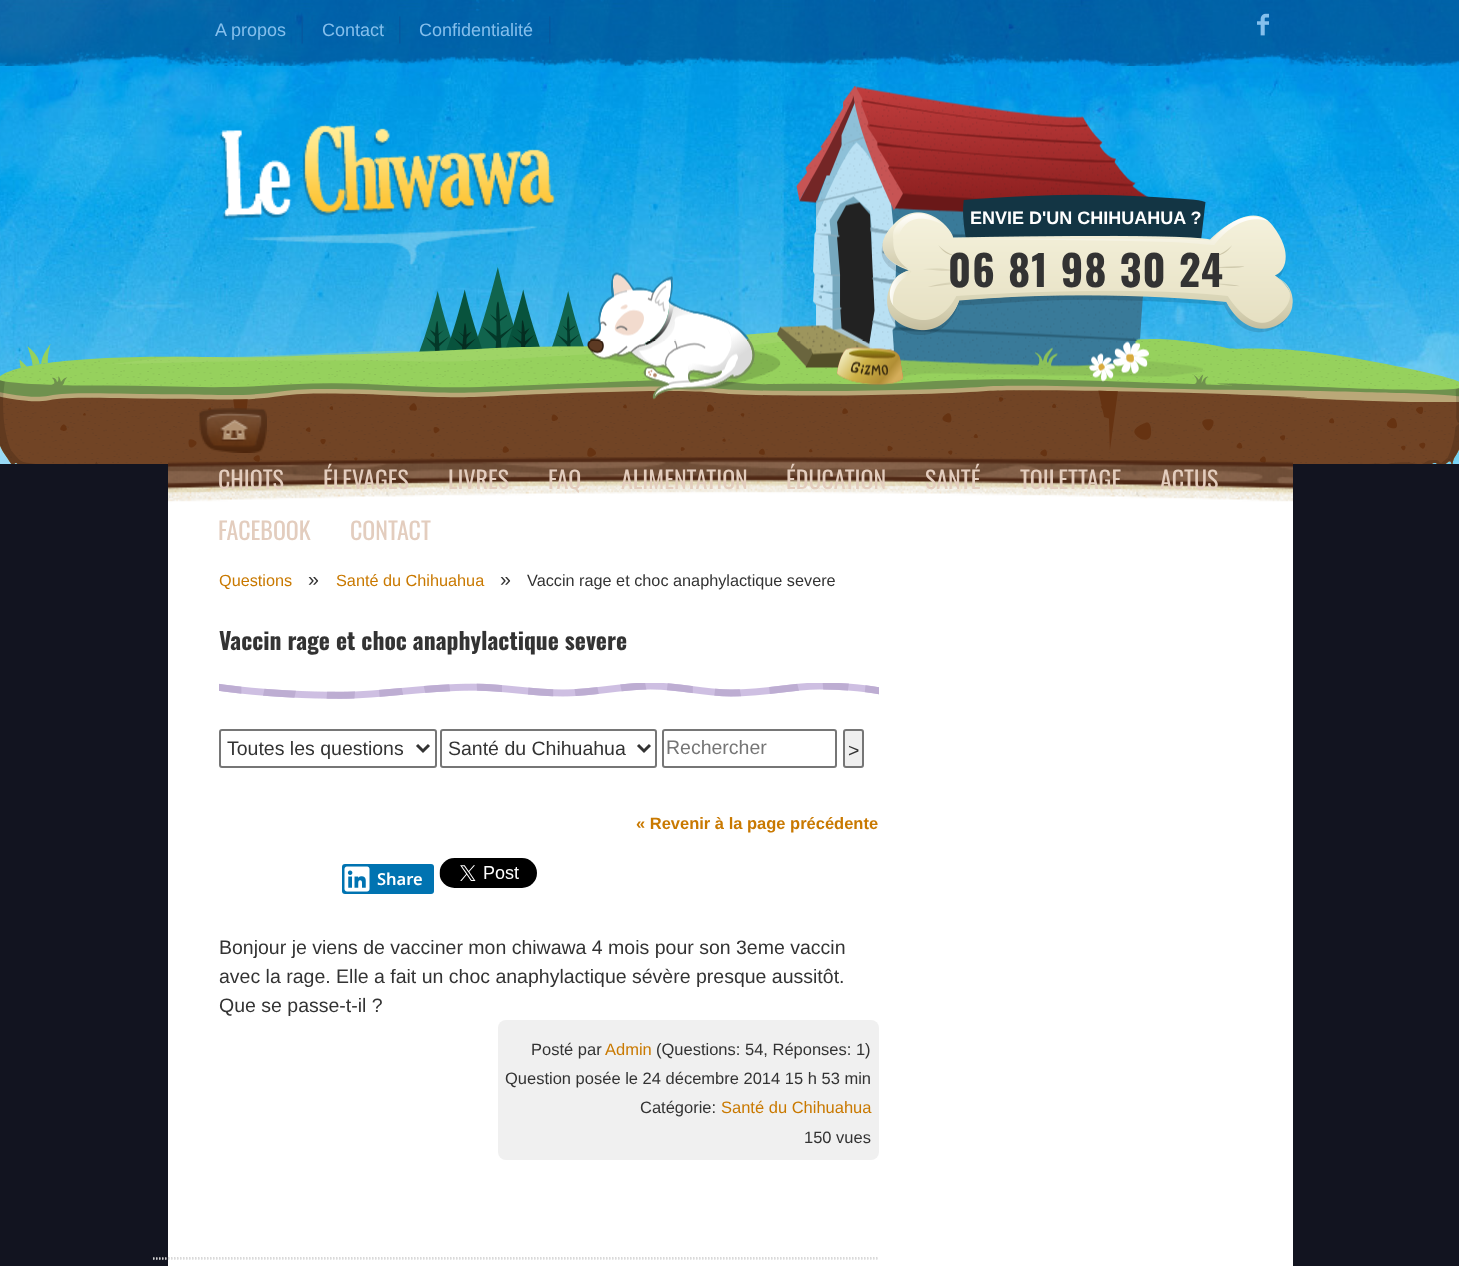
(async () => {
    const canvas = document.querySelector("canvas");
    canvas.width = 1459;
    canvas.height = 1266;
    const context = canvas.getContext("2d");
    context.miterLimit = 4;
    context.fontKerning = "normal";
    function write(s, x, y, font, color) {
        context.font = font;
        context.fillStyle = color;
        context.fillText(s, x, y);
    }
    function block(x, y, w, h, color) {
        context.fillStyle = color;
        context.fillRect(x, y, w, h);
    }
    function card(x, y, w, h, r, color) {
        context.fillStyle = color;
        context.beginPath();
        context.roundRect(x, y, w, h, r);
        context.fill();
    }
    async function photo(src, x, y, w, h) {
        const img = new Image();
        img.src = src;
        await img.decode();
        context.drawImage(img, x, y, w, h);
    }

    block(0, 0, 1459, 1266, "rgb(255, 255, 255)");
    await photo("media/1.png", 0, 0, 1459, 464);
    await photo("media/2.png", 0, 0, 1459, 66);
    await photo("media/3.png", 301, 16, 2, 28);
    write("A propos", 215, 36, "18px Liberation Sans", "rgb(133, 191, 236)");
    await photo("media/4.png", 399, 16, 2, 28);
    write("Contact", 322, 36, "18px Liberation Sans", "rgb(133, 191, 236)");
    await photo("media/5.png", 549, 16, 2, 28);
    write("Confidentialité", 419, 36, "18px Liberation Sans", "rgb(133, 191, 236)");
    await photo("media/6.png", 1257, 13, 12, 23);
    await photo("media/7.png", 0, 267, 1459, 197);
    await photo("media/8.png", 219, 124, 336, 142);
    await photo("media/9.png", 587, 86, 616, 314);
    await photo("media/10.png", 881, 194, 412, 141);
    write("ENVIE D'UN CHIHUAHUA ?", 970, 224, "bold 18px Liberation Sans", "rgb(255, 255, 255)");
    context.letterSpacing = "1.25px";
    write("06 81 98 30 24", 948, 287, "bold 42px Oswald", "rgb(51, 51, 51)");
    await photo("media/11.png", 199, 408, 68, 45);
    block(0, 464, 1459, 802, "rgb(18, 20, 32)");
    await photo("media/12.png", 168, 457, 1125, 195);
    context.letterSpacing = "0px";
    write("CHIOTS", 218, 489, "24px Oswald", "rgb(227, 205, 190)");
    write("ÉLEVAGES", 323, 489, "24px Oswald", "rgb(227, 205, 190)");
    write("LIVRES", 448, 489, "24px Oswald", "rgb(227, 205, 190)");
    write("FAQ", 548, 489, "24px Oswald", "rgb(227, 205, 190)");
    write("ALIMENTATION", 621, 489, "24px Oswald", "rgb(227, 205, 190)");
    write("ÉDUCATION", 786, 489, "24px Oswald", "rgb(227, 205, 190)");
    write("SANTÉ", 925, 489, "24px Oswald", "rgb(227, 205, 190)");
    write("TOILETTAGE", 1020, 489, "24px Oswald", "rgb(227, 205, 190)");
    write("ACTUS", 1160, 489, "24px Oswald", "rgb(227, 205, 190)");
    write("FACEBOOK", 218, 540, "24px Oswald", "rgb(227, 205, 190)");
    write("CONTACT", 350, 540, "24px Oswald", "rgb(227, 205, 190)");
    block(168, 652, 1125, 614, "rgb(255, 255, 255)");
    write("Questions", 219, 586, "16.25px Liberation Sans", "rgb(201, 121, 0)");
    write("»", 308, 586, "19.5px Liberation Sans", "rgb(51, 51, 51)");
    write("Santé du Chihuahua", 336, 586, "16.25px Liberation Sans", "rgb(201, 121, 0)");
    write("»", 500, 586, "19.5px Liberation Sans", "rgb(51, 51, 51)");
    write("Vaccin rage et choc anaphylactique severe", 527, 586, "16.25px Liberation Sans", "rgb(51, 51, 51)");
    await photo("media/13.png", 219, 683, 660, 16);
    write("Vaccin rage et choc anaphylactique severe", 219, 650, "bold 23.6px Oswald", "rgb(51, 51, 51)");
    context.beginPath();
    context.roundRect(220, 730, 216, 37, 2);
    context.strokeStyle = "rgb(118, 118, 118)";
    context.lineWidth = 2;
    context.stroke();
    context.beginPath();
    context.moveTo(417, 745);
    context.lineTo(423, 751);
    context.lineTo(429, 745);
    context.strokeStyle = "rgb(51, 51, 51)";
    context.lineWidth = 3;
    context.stroke();
    write("Toutes les questions", 227, 755, "19.5px Liberation Sans", "rgb(51, 51, 51)");
    context.beginPath();
    context.roundRect(441, 730, 215, 37, 2);
    context.strokeStyle = "rgb(118, 118, 118)";
    context.lineWidth = 2;
    context.stroke();
    context.beginPath();
    context.moveTo(638, 745);
    context.lineTo(644, 751);
    context.lineTo(650, 745);
    context.strokeStyle = "rgb(51, 51, 51)";
    context.lineWidth = 3;
    context.stroke();
    write("Santé du Chihuahua", 448, 755, "19.5px Liberation Sans", "rgb(51, 51, 51)");
    context.beginPath();
    context.roundRect(663, 730, 173, 37, 2);
    context.strokeStyle = "rgb(118, 118, 118)";
    context.lineWidth = 2;
    context.stroke();
    write("Rechercher", 666, 754, "19.5px Liberation Sans", "rgb(117, 117, 117)");
    context.fillStyle = "rgb(239, 239, 239)";
    context.beginPath();
    context.roundRect(844, 730, 19, 37, 2);
    context.fill();
    context.stroke();
    write(">", 848, 757, "19.5px Liberation Sans", "rgb(51, 51, 51)");
    write("« Revenir à la page précédente", 636, 829, "bold 16.5px Liberation Sans", "rgb(201, 121, 0)");
    card(342, 864, 92, 30, 3, "rgb(0, 115, 177)");
    await photo("media/14.png", 344, 866, 26, 26);
    write("Share", 377, 885, "600 16.5px Noto Sans", "rgb(255, 255, 255)");
    await photo("media/15.png", 439, 858, 98, 30);
    write("Bonjour je viens de vacciner mon chiwawa 4 mois pour son 3eme vaccin", 219, 954, "19.5px Liberation Sans", "rgb(51, 51, 51)");
    write("avec la rage. Elle a fait un choc anaphylactique sévère presque aussitôt.", 219, 983, "19.5px Liberation Sans", "rgb(51, 51, 51)");
    write("Que se passe-t-il ?", 219, 1012, "19.5px Liberation Sans", "rgb(51, 51, 51)");
    card(498, 1020, 381, 140, 8, "rgb(240, 240, 240)");
    write("Posté par", 531, 1055, "16.5px Liberation Sans", "rgb(51, 51, 51)");
    write("Admin", 605, 1055, "16.5px Liberation Sans", "rgb(201, 121, 0)");
    write("(Questions: 54, Réponses: 1)", 656, 1055, "16.5px Liberation Sans", "rgb(51, 51, 51)");
    write("Question posée le 24 décembre 2014 15 h 53 min", 505, 1084, "16.5px Liberation Sans", "rgb(51, 51, 51)");
    write("Catégorie:", 640, 1113, "16.5px Liberation Sans", "rgb(51, 51, 51)");
    write("Santé du Chihuahua", 721, 1113, "16.5px Liberation Sans", "rgb(201, 121, 0)");
    write("150 vues", 804, 1143, "16.5px Liberation Sans", "rgb(51, 51, 51)");
    context.beginPath();
    context.moveTo(153, 1258);
    context.lineTo(879, 1258);
    context.strokeStyle = "rgb(204, 204, 204)";
    context.lineWidth = 1.5;
    context.setLineDash([1.5, 1.5]);
    context.stroke();
    context.beginPath();
    context.moveTo(153, 1259);
    context.lineTo(879, 1259);
    context.strokeStyle = "rgb(221, 221, 221)";
    context.stroke();
})();
